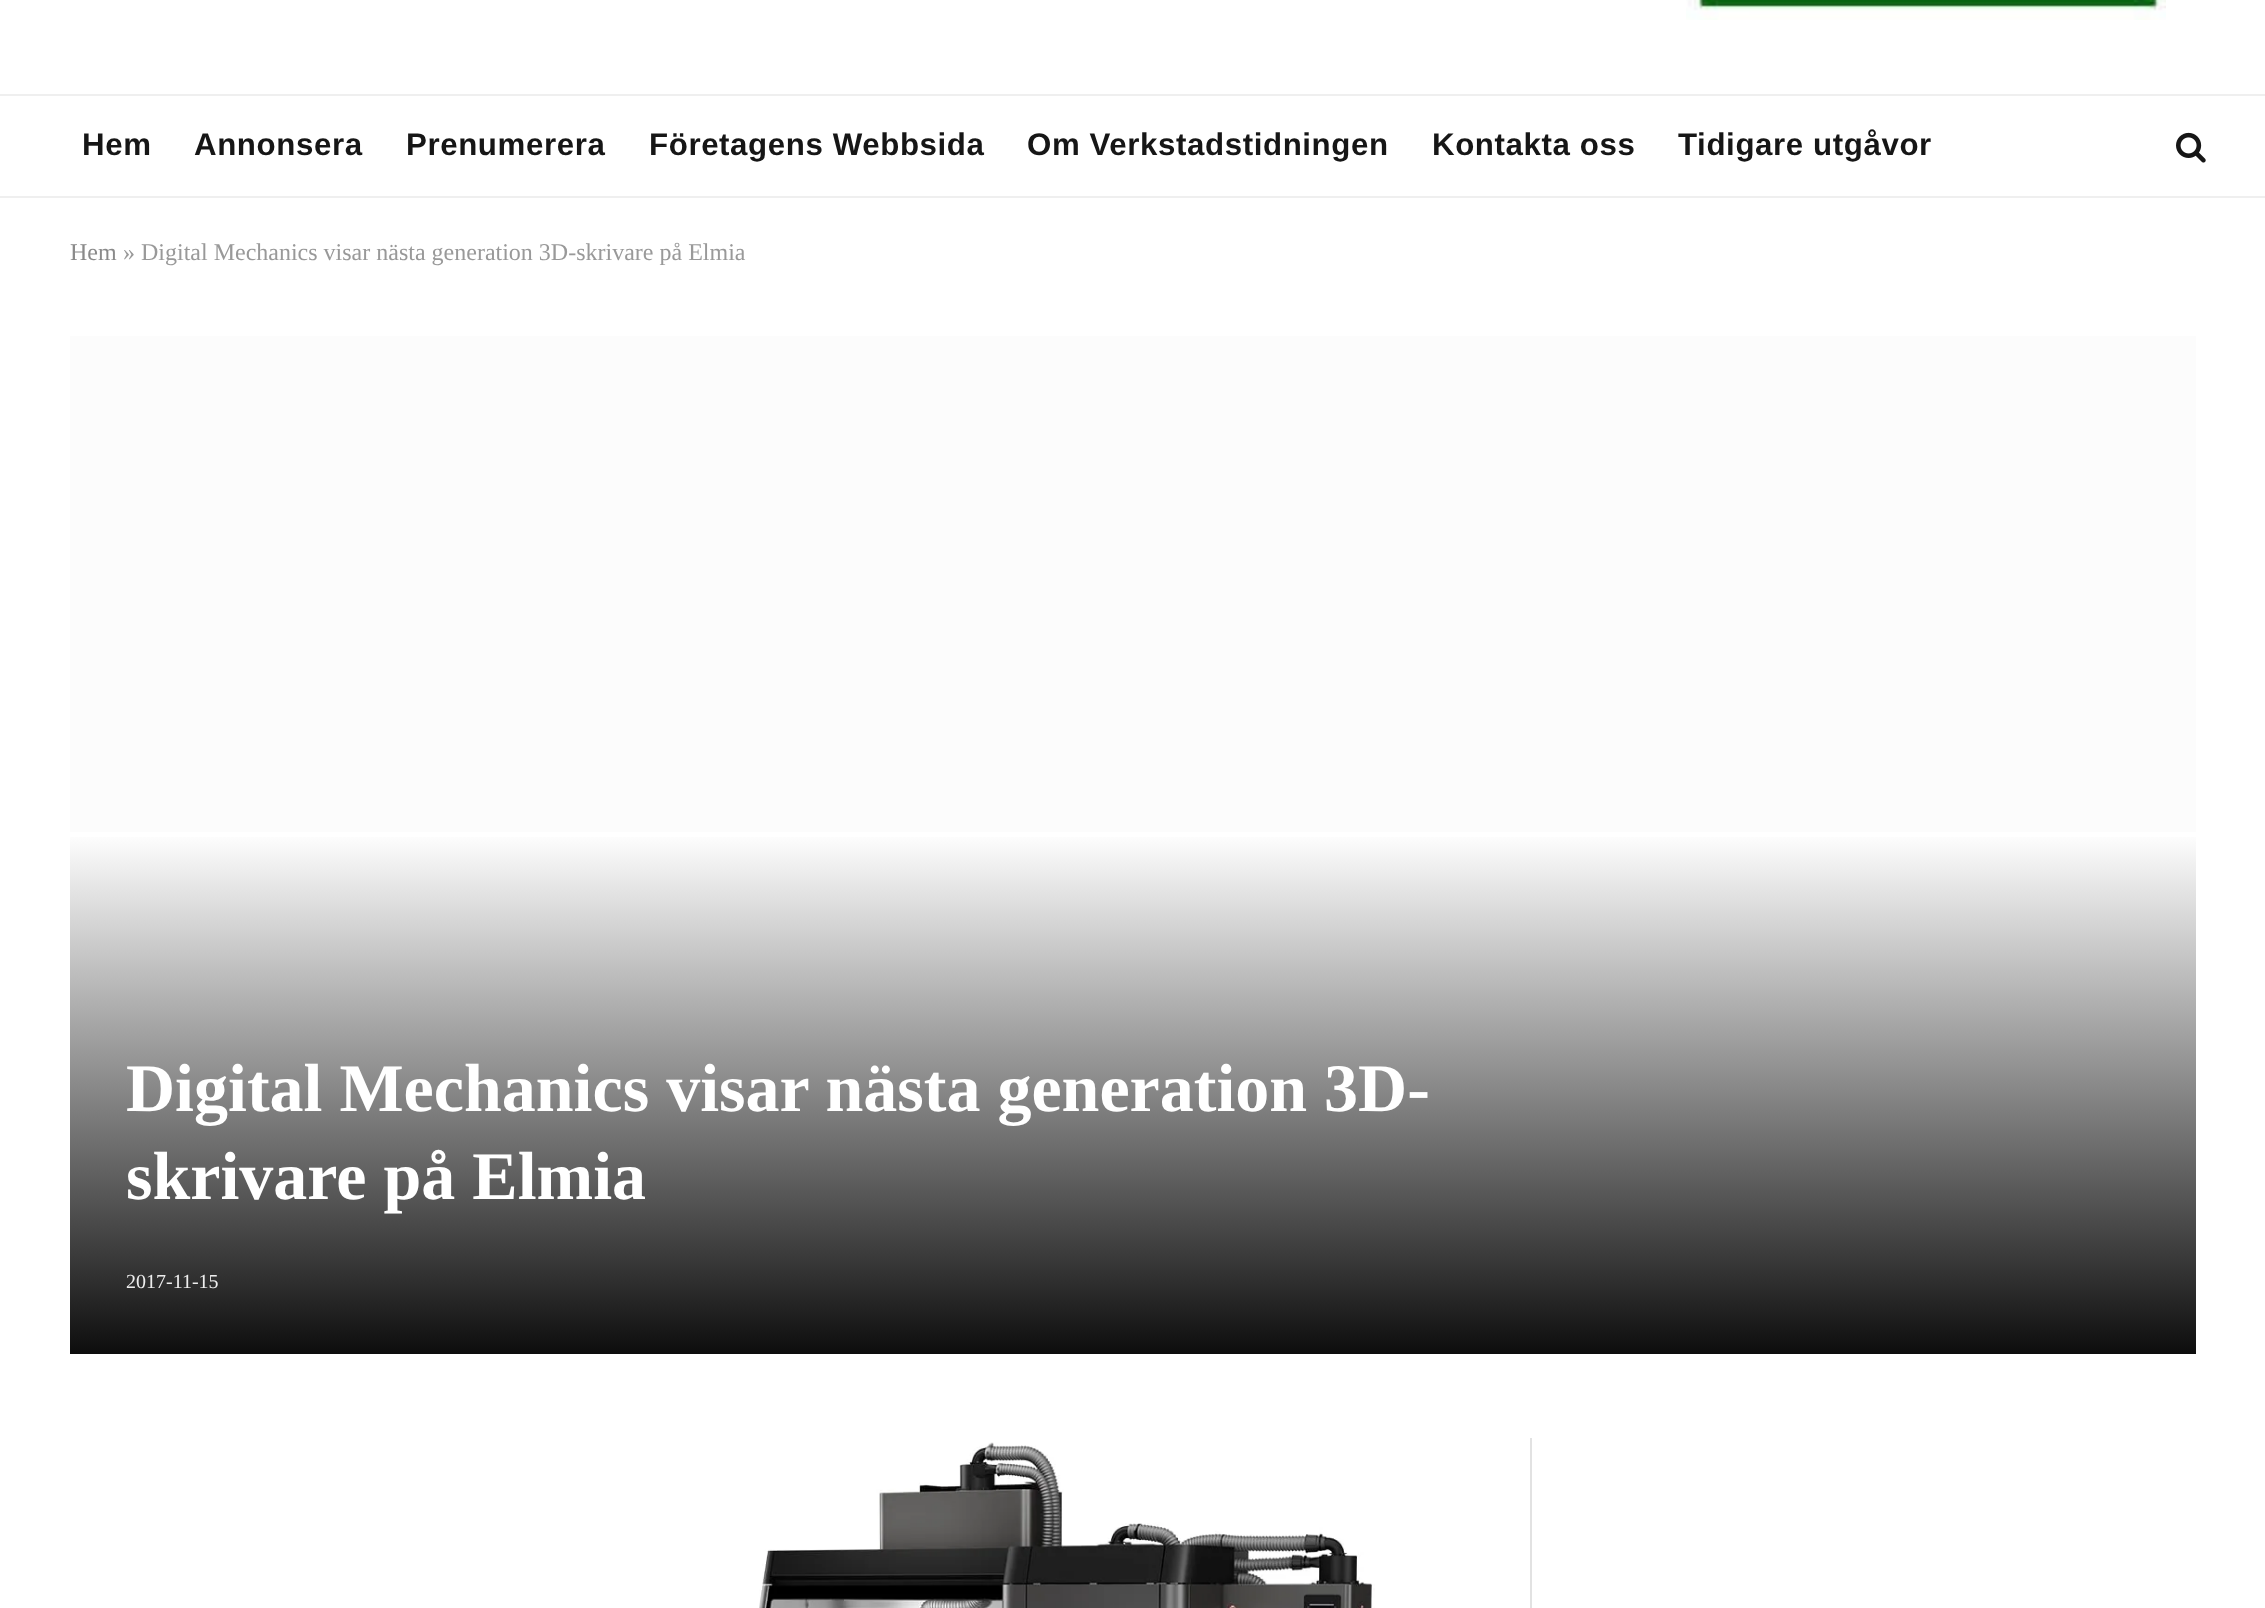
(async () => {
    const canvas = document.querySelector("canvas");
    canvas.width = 2265;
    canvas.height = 1608;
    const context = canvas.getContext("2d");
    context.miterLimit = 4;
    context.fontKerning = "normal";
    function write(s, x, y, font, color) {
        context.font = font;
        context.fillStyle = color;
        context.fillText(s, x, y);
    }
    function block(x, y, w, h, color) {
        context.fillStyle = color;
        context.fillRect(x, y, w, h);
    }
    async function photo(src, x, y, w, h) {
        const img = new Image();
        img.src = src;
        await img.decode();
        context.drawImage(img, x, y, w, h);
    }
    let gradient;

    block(0, 0, 2265, 1608, "rgb(255, 255, 255)");
    await photo("media/1.png", 1686, 0, 480, 20);
    block(0, 94, 2265, 2, "rgb(239, 239, 239)");
    block(0, 196, 2265, 2, "rgb(239, 239, 239)");
    context.letterSpacing = "0.6px";
    write("Hem", 82, 155, "bold 31.25px Liberation Sans", "rgb(22, 22, 22)");
    write("Annonsera", 194, 155, "bold 31.25px Liberation Sans", "rgb(22, 22, 22)");
    write("Prenumerera", 406, 155, "bold 31.25px Liberation Sans", "rgb(22, 22, 22)");
    write("Företagens Webbsida", 649, 155, "bold 31.25px Liberation Sans", "rgb(22, 22, 22)");
    write("Om Verkstadstidningen", 1027, 155, "bold 31.25px Liberation Sans", "rgb(22, 22, 22)");
    write("Kontakta oss", 1432, 155, "bold 31.25px Liberation Sans", "rgb(22, 22, 22)");
    write("Tidigare utgåvor", 1678, 155, "bold 31.25px Liberation Sans", "rgb(22, 22, 22)");
    await photo("media/2.png", 2176, 132, 30, 31);
    context.letterSpacing = "0px";
    write("Hem", 70, 260, "24px Liberation Serif", "rgb(138, 138, 138)");
    write("» Digital Mechanics visar nästa generation 3D-skrivare på Elmia", 123, 260, "24px Liberation Serif", "rgb(153, 153, 153)");
    block(70, 336, 2126, 496, "rgb(252, 252, 252)");
    gradient = context.createLinearGradient(1133, 832, 1133, 1354);
    gradient.addColorStop(0, "rgb(255, 255, 255)");
    gradient.addColorStop(1, "rgb(13, 13, 13)");
    context.fillStyle = gradient;
    context.fillRect(70, 837, 2126, 517);
    write("Digital Mechanics visar nästa generation 3D-", 126, 1111, "bold 68px Liberation Serif", "rgb(255, 255, 255)");
    write("skrivare på Elmia", 126, 1199, "bold 68px Liberation Serif", "rgb(255, 255, 255)");
    write("2017-11-15", 126, 1288, "20px Liberation Serif", "rgb(238, 238, 238)");
    await photo("media/3.png", 759, 1442, 616, 166);
    block(1530, 1438, 2, 170, "rgb(226, 226, 226)");
})();
